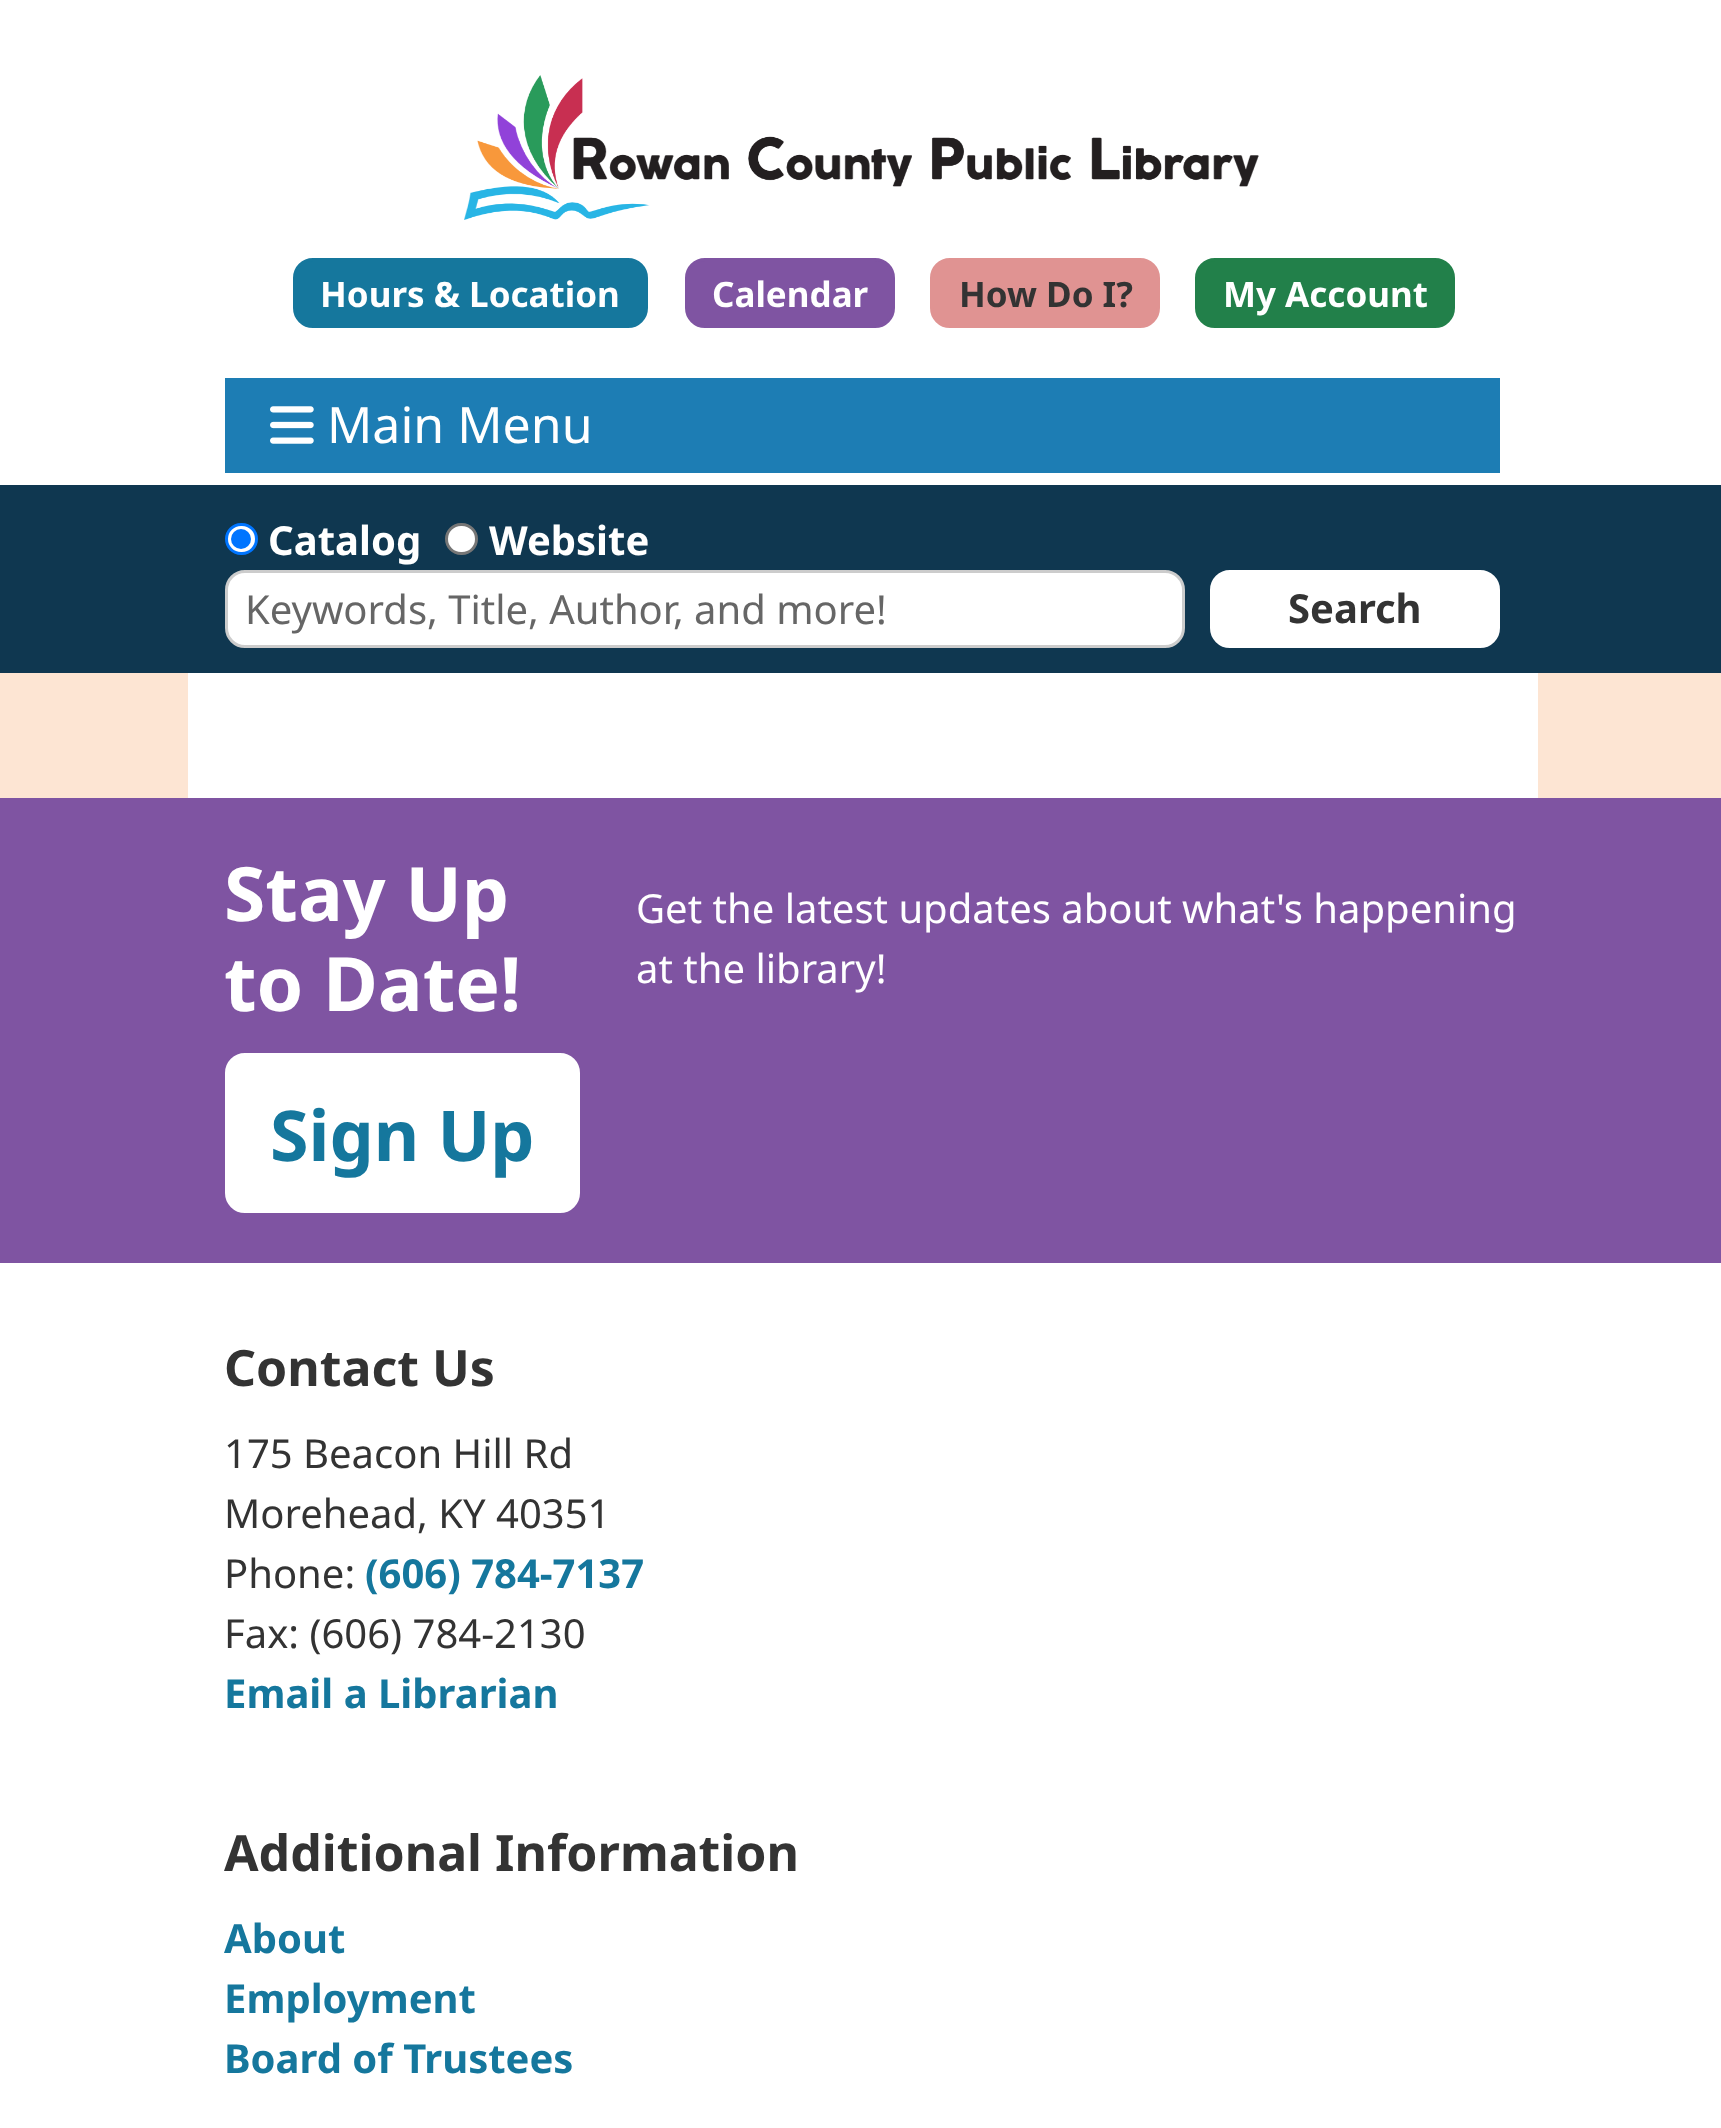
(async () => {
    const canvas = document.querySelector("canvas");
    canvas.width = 1721;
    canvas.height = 2128;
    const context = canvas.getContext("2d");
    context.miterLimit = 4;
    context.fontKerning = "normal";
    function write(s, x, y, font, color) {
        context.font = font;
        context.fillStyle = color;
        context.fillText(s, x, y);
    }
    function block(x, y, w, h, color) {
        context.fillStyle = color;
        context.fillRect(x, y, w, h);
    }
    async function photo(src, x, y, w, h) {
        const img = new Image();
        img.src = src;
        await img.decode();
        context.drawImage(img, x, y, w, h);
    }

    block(0, 0, 1721, 2128, "rgb(255, 255, 255)");
    await photo("media/1.png", 464, 75, 795, 145);
    context.fillStyle = "rgb(21, 119, 157)";
    context.beginPath();
    context.roundRect(294.5, 259.5, 352, 67, 18.5);
    context.fill();
    context.strokeStyle = "rgb(21, 119, 157)";
    context.lineWidth = 3;
    context.stroke();
    write("Hours & Location", 320, 307, "bold 35px Noto Sans", "rgb(255, 255, 255)");
    context.fillStyle = "rgb(127, 84, 162)";
    context.beginPath();
    context.roundRect(686.5, 259.5, 207, 67, 18.5);
    context.fill();
    context.strokeStyle = "rgb(127, 84, 162)";
    context.stroke();
    write("Calendar", 712, 307, "bold 35px Noto Sans", "rgb(255, 255, 255)");
    context.fillStyle = "rgb(224, 147, 146)";
    context.beginPath();
    context.roundRect(931.5, 259.5, 227, 67, 18.5);
    context.fill();
    context.strokeStyle = "rgb(224, 147, 146)";
    context.stroke();
    write("How Do I?", 959, 307, "bold 35px Noto Sans", "rgb(51, 51, 51)");
    context.fillStyle = "rgb(34, 128, 74)";
    context.beginPath();
    context.roundRect(1196.5, 259.5, 257, 67, 18.5);
    context.fill();
    context.strokeStyle = "rgb(34, 128, 74)";
    context.stroke();
    write("My Account", 1223, 307, "bold 35px Noto Sans", "rgb(255, 255, 255)");
    block(225, 378, 1275, 95, "rgb(29, 125, 180)");
    await photo("media/2.png", 270, 406, 44, 38);
    write("Main Menu", 327, 443, "50px Noto Sans", "rgb(255, 255, 255)");
    block(0, 485, 1721, 188, "rgb(15, 55, 80)");
    context.fillStyle = "rgb(255, 255, 255)";
    context.beginPath();
    context.roundRect(226.5, 524.5, 30, 29, 14.5);
    context.fill();
    context.strokeStyle = "rgb(0, 117, 255)";
    context.stroke();
    context.fillStyle = "rgb(0, 117, 255)";
    context.beginPath();
    context.arc(241, 539, 10, 0, Math.PI * 2);
    context.fill();
    write("Catalog", 268, 555, "bold 40px Noto Sans", "rgb(255, 255, 255)");
    context.beginPath();
    context.roundRect(446.5, 524.5, 30, 29, 14.5);
    context.fill();
    context.strokeStyle = "rgb(118, 118, 118)";
    context.stroke();
    write("Website", 489, 555, "bold 40px Noto Sans", "rgb(255, 255, 255)");
    context.beginPath();
    context.roundRect(226.5, 571.5, 957, 75, 18.5);
    context.fill();
    context.strokeStyle = "rgb(204, 204, 204)";
    context.stroke();
    write("Keywords, Title, Author, and more!", 245, 624, "40px Noto Sans", "rgb(102, 102, 102)");
    context.fillStyle = "rgb(255, 255, 255)";
    context.beginPath();
    context.roundRect(1211.5, 571.5, 287, 75, 18.5);
    context.fill();
    context.strokeStyle = "rgb(255, 255, 255)";
    context.stroke();
    write("Search", 1288, 623, "bold 40px Noto Sans", "rgb(51, 51, 51)");
    block(0, 673, 1721, 125, "rgb(253, 229, 211)");
    block(188, 673, 1350, 125, "rgb(255, 255, 255)");
    block(0, 798, 1721, 465, "rgb(127, 84, 162)");
    write("Stay Up", 224, 921, "bold 75px Noto Sans", "rgb(255, 255, 255)");
    write("to Date!", 224, 1011, "bold 75px Noto Sans", "rgb(255, 255, 255)");
    write("Get the latest updates about what's happening", 636, 923, "40px Noto Sans", "rgb(255, 255, 255)");
    write("at the library!", 636, 983, "40px Noto Sans", "rgb(255, 255, 255)");
    context.beginPath();
    context.roundRect(226.5, 1054.5, 352, 157, 18.5);
    context.fill();
    context.stroke();
    write("Sign Up", 270, 1161, "bold 70px Noto Sans", "rgb(21, 119, 157)");
    write("Contact Us", 224, 1386, "bold 50px Noto Sans", "rgb(51, 51, 51)");
    write("175 Beacon Hill Rd", 224, 1468, "40px Noto Sans", "rgb(51, 51, 51)");
    write("Morehead, KY 40351", 224, 1528, "40px Noto Sans", "rgb(51, 51, 51)");
    write("Phone:", 224, 1588, "40px Noto Sans", "rgb(51, 51, 51)");
    write("(606) 784-7137", 365, 1588, "bold 40px Noto Sans", "rgb(21, 119, 157)");
    write("Fax: (606) 784-2130", 224, 1648, "40px Noto Sans", "rgb(51, 51, 51)");
    write("Email a Librarian", 224, 1708, "bold 40px Noto Sans", "rgb(21, 119, 157)");
    write("Additional Information", 224, 1871, "bold 50px Noto Sans", "rgb(51, 51, 51)");
    write("About", 224, 1953, "bold 40px Noto Sans", "rgb(21, 119, 157)");
    write("Employment", 224, 2013, "bold 40px Noto Sans", "rgb(21, 119, 157)");
    write("Board of Trustees", 224, 2073, "bold 40px Noto Sans", "rgb(21, 119, 157)");
})();
